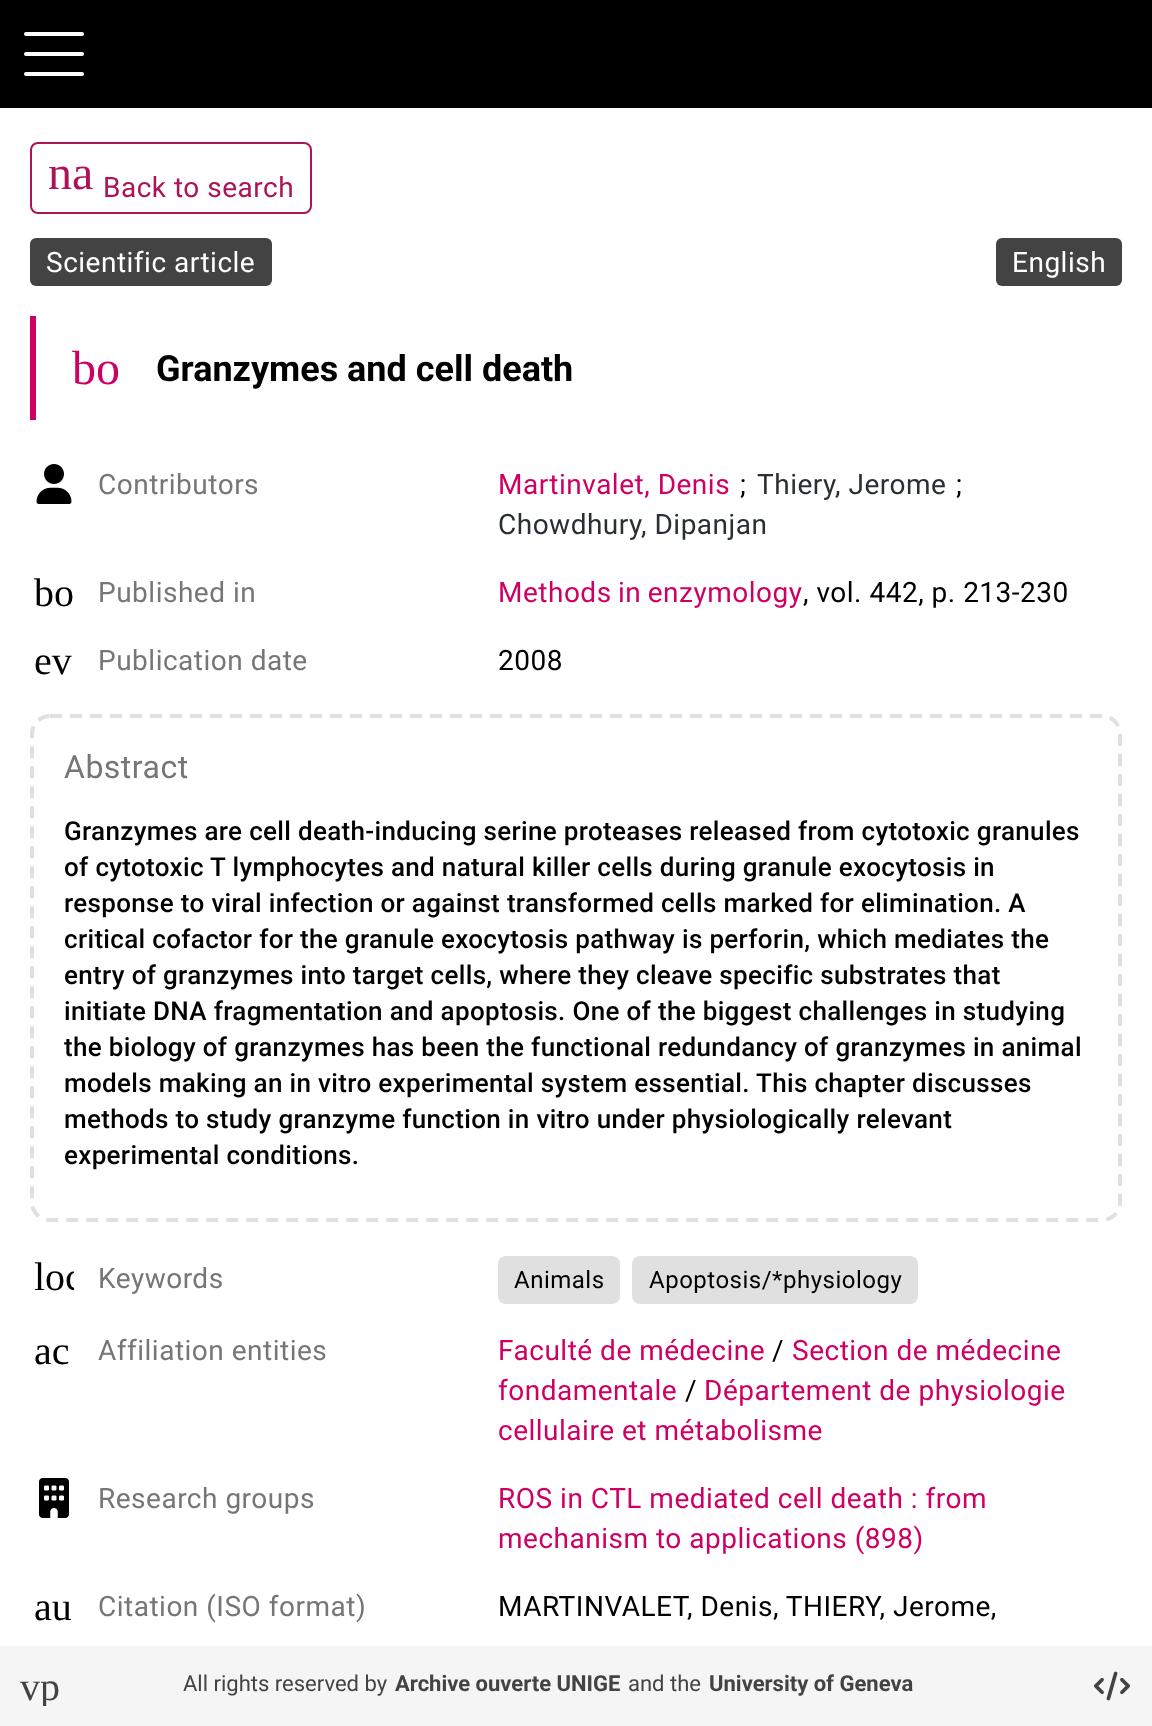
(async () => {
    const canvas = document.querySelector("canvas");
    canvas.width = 1152;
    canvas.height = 1726;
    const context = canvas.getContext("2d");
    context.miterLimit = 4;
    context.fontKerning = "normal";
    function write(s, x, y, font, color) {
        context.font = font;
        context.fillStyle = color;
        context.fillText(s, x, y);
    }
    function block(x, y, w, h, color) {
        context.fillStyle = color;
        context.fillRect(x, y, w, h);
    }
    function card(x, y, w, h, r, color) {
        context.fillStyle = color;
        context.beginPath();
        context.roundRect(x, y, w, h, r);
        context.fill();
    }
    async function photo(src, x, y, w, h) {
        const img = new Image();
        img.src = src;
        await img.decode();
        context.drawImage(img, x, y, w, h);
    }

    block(0, 0, 1152, 1726, "rgb(255, 255, 255)");
    block(0, 0, 1152, 108, "rgb(0, 0, 0)");
    card(24, 32, 60, 4, 2, "rgb(255, 255, 255)");
    card(24, 52, 60, 4, 2, "rgb(255, 255, 255)");
    card(24, 72, 60, 4, 2, "rgb(255, 255, 255)");
    context.beginPath();
    context.roundRect(31, 143, 280, 70, 7);
    context.strokeStyle = "rgb(173, 20, 87)";
    context.lineWidth = 2;
    context.stroke();
    write("na", 48, 189, "48px Liberation Serif", "rgb(173, 20, 87)");
    context.letterSpacing = "0.5px";
    write("Back to search", 103, 197, "28px Roboto", "rgb(173, 20, 87)");
    card(30, 238, 242, 48, 6, "rgb(67, 67, 67)");
    write("Scientific article", 46, 272, "28px Roboto", "rgb(255, 255, 255)");
    card(996, 238, 126, 48, 6, "rgb(67, 67, 67)");
    write("English", 1012, 272, "28px Roboto", "rgb(255, 255, 255)");
    block(30, 316, 6, 104, "rgb(207, 0, 99)");
    context.letterSpacing = "0px";
    write("bo", 72, 384, "48px Liberation Serif", "rgb(207, 0, 99)");
    write("Granzymes and cell death", 156, 381, "bold 36px Roboto", "rgb(0, 0, 0)");
    await photo("media/1.png", 36, 464, 36, 40);
    context.letterSpacing = "0.5px";
    write("Contributors", 98, 494, "28px Roboto", "rgb(118, 118, 118)");
    write("Martinvalet, Denis", 498, 494, "28px Roboto", "rgb(207, 0, 99)");
    write(";", 740, 494, "28px Roboto", "rgb(0, 0, 0)");
    write("Thiery", 757, 494, "28px Roboto", "rgb(41, 47, 51)");
    write(", Jerome", 835, 494, "28px Roboto", "rgb(41, 47, 51)");
    write(";", 956, 494, "28px Roboto", "rgb(0, 0, 0)");
    write("Chowdhury", 498, 534, "28px Roboto", "rgb(41, 47, 51)");
    write(", Dipanjan", 641, 534, "28px Roboto", "rgb(41, 47, 51)");
    context.letterSpacing = "0px";
    write("bo", 34, 606, "40px Liberation Serif", "rgb(0, 0, 0)");
    context.letterSpacing = "0.5px";
    write("Published in", 98, 602, "28px Roboto", "rgb(118, 118, 118)");
    context.wordSpacing = "-1px";
    write("Methods in enzymology", 498, 602, "28px Roboto", "rgb(207, 0, 99)");
    context.wordSpacing = "0px";
    write(", vol. 442, p. 213-230", 803, 602, "28px Roboto", "rgb(0, 0, 0)");
    context.letterSpacing = "0px";
    write("ev", 34, 674, "40px Liberation Serif", "rgb(0, 0, 0)");
    context.letterSpacing = "0.5px";
    write("Publication date", 98, 670, "28px Roboto", "rgb(118, 118, 118)");
    write("2008", 498, 670, "28px Roboto", "rgb(0, 0, 0)");
    context.beginPath();
    context.moveTo(50, 716);
    context.lineTo(1102, 716);
    context.bezierCurveTo(1112, 716, 1120, 724, 1120, 734);
    context.lineTo(1120, 1202);
    context.bezierCurveTo(1120, 1212, 1112, 1220, 1102, 1220);
    context.lineTo(50, 1220);
    context.bezierCurveTo(40, 1220, 32, 1212, 32, 1202);
    context.lineTo(32, 734);
    context.bezierCurveTo(32, 724, 40, 716, 50, 716);
    context.closePath();
    context.strokeStyle = "rgb(224, 224, 224)";
    context.lineWidth = 4;
    context.setLineDash([12, 8]);
    context.stroke();
    write("Abstract", 64, 778, "32px Roboto", "rgb(118, 118, 118)");
    context.letterSpacing = "0.33px";
    write("Granzymes are cell death-inducing serine proteases released from cytotoxic granules", 64, 840, "500 26px Roboto", "rgb(0, 0, 0)");
    write("of cytotoxic T lymphocytes and natural killer cells during granule exocytosis in", 64, 876, "500 26px Roboto", "rgb(0, 0, 0)");
    write("response to viral infection or against transformed cells marked for elimination. A", 64, 912, "500 26px Roboto", "rgb(0, 0, 0)");
    write("critical cofactor for the granule exocytosis pathway is perforin, which mediates the", 64, 948, "500 26px Roboto", "rgb(0, 0, 0)");
    write("entry of granzymes into target cells, where they cleave specific substrates that", 64, 984, "500 26px Roboto", "rgb(0, 0, 0)");
    write("initiate DNA fragmentation and apoptosis. One of the biggest challenges in studying", 64, 1020, "500 26px Roboto", "rgb(0, 0, 0)");
    write("the biology of granzymes has been the functional redundancy of granzymes in animal", 64, 1056, "500 26px Roboto", "rgb(0, 0, 0)");
    write("models making an in vitro experimental system essential. This chapter discusses", 64, 1092, "500 26px Roboto", "rgb(0, 0, 0)");
    write("methods to study granzyme function in vitro under physiologically relevant", 64, 1128, "500 26px Roboto", "rgb(0, 0, 0)");
    write("experimental conditions.", 64, 1164, "500 26px Roboto", "rgb(0, 0, 0)");
    context.save();
    context.beginPath();
    context.rect(34, 1256, 40, 40);
    context.clip();
    context.letterSpacing = "0px";
    write("loc", 34, 1290, "40px Liberation Serif", "rgb(0, 0, 0)");
    context.restore();
    context.letterSpacing = "0.5px";
    write("Keywords", 98, 1288, "28px Roboto", "rgb(118, 118, 118)");
    card(498, 1256, 122, 48, 8, "rgb(224, 224, 224)");
    write("Animals", 514, 1288, "24px Roboto", "rgb(0, 0, 0)");
    card(632, 1256, 286, 48, 8, "rgb(224, 224, 224)");
    write("Apoptosis/*physiology", 649, 1288, "24px Roboto", "rgb(0, 0, 0)");
    context.letterSpacing = "0px";
    write("ac", 34, 1364, "40px Liberation Serif", "rgb(0, 0, 0)");
    context.letterSpacing = "0.5px";
    write("Affiliation entities", 98, 1360, "28px Roboto", "rgb(118, 118, 118)");
    write("Faculté de médecine", 498, 1360, "28px Roboto", "rgb(207, 0, 99)");
    write("/", 772, 1360, "28px Roboto", "rgb(0, 0, 0)");
    write("Section de médecine", 792, 1360, "28px Roboto", "rgb(207, 0, 99)");
    write("fondamentale", 498, 1400, "28px Roboto", "rgb(207, 0, 99)");
    write("/", 685, 1400, "28px Roboto", "rgb(0, 0, 0)");
    write("Département de physiologie", 704, 1400, "28px Roboto", "rgb(207, 0, 99)");
    write("cellulaire et métabolisme", 498, 1440, "28px Roboto", "rgb(207, 0, 99)");
    await photo("media/2.png", 39, 1478, 30, 40);
    write("Research groups", 98, 1508, "28px Roboto", "rgb(118, 118, 118)");
    write("ROS in CTL mediated cell death : from", 498, 1508, "28px Roboto", "rgb(207, 0, 99)");
    write("mechanism to applications (898)", 498, 1548, "28px Roboto", "rgb(207, 0, 99)");
    context.letterSpacing = "0px";
    write("au", 34, 1620, "40px Liberation Serif", "rgb(0, 0, 0)");
    context.letterSpacing = "0.5px";
    write("Citation (ISO format)", 98, 1616, "28px Roboto", "rgb(118, 118, 118)");
    write("MARTINVALET, Denis, THIERY, Jerome,", 498, 1616, "28px Roboto", "rgb(0, 0, 0)");
    block(0, 1646, 1152, 80, "rgb(245, 245, 245)");
    context.save();
    context.beginPath();
    context.rect(20, 1666, 40, 40);
    context.clip();
    context.letterSpacing = "0px";
    write("vp", 20, 1700, "40px Liberation Serif", "rgb(67, 67, 67)");
    context.restore();
    context.letterSpacing = "0px";
    write("All rights reserved by", 183, 1691, "22px Roboto", "rgb(67, 67, 67)");
    write("Archive ouverte UNIGE", 395, 1691, "bold 22px Roboto", "rgb(67, 67, 67)");
    write("and the", 628, 1691, "22px Roboto", "rgb(67, 67, 67)");
    write("University of Geneva", 709, 1691, "bold 22px Roboto", "rgb(67, 67, 67)");
    await photo("media/3.png", 1094, 1671, 36, 30);
})();
